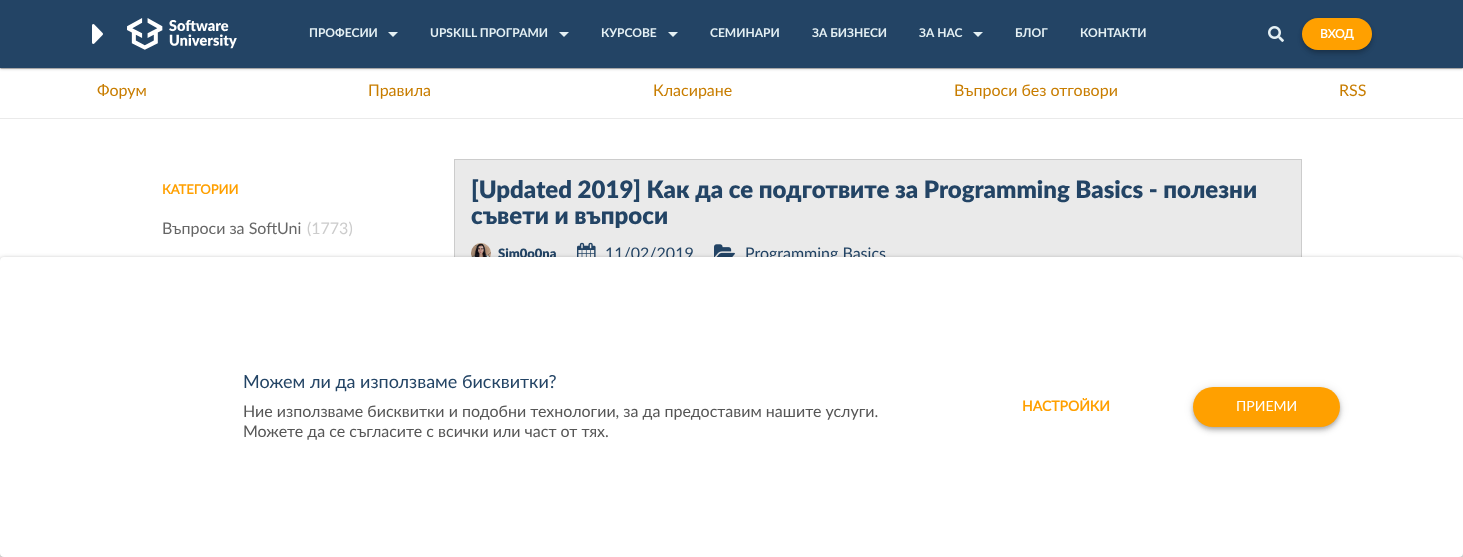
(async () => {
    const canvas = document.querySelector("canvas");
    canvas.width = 1463;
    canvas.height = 557;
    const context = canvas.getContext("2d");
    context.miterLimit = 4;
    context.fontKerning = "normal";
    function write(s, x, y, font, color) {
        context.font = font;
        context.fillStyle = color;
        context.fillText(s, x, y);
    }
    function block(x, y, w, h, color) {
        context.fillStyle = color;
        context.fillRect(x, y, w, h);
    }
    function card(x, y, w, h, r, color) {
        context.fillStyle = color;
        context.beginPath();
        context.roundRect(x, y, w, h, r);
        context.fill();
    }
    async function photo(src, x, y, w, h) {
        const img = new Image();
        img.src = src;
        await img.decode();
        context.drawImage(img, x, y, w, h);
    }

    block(0, 0, 1463, 557, "rgb(255, 255, 255)");
    context.fillStyle = "rgba(0, 0, 0, 0.2)";
    context.filter = "blur(1.5px)";
    context.beginPath();
    context.rect(0, 1, 1463, 68);
    context.fill();
    context.filter = "none";
    context.fillStyle = "rgba(0, 0, 0, 0.12)";
    context.filter = "blur(0.5px)";
    context.beginPath();
    context.rect(1, 3, 1461, 66);
    context.fill();
    context.filter = "none";
    context.fillStyle = "rgba(0, 0, 0, 0.14)";
    context.filter = "blur(0.5px)";
    context.beginPath();
    context.rect(0, 1, 1463, 68);
    context.fill();
    context.filter = "none";
    block(0, 0, 1463, 68, "rgb(35, 68, 101)");
    await photo("media/1.png", 92, 24, 11, 20);
    await photo("media/2.png", 127, 18, 110, 32);
    write("ПРОФЕСИИ", 309, 37, "bold 12px 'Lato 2'", "rgb(228, 240, 244)");
    context.beginPath();
    context.moveTo(388, 32);
    context.lineTo(398, 32);
    context.lineTo(393, 37);
    context.closePath();
    context.fill();
    write("UPSKILL ПРОГРАМИ", 430, 37, "bold 12px 'Lato 2'", "rgb(228, 240, 244)");
    context.beginPath();
    context.moveTo(559, 32);
    context.lineTo(569, 32);
    context.lineTo(564, 37);
    context.closePath();
    context.fill();
    write("КУРСОВЕ", 601, 37, "bold 12px 'Lato 2'", "rgb(228, 240, 244)");
    context.beginPath();
    context.moveTo(668, 32);
    context.lineTo(678, 32);
    context.lineTo(673, 37);
    context.closePath();
    context.fill();
    write("СЕМИНАРИ", 710, 37, "bold 12px 'Lato 2'", "rgb(228, 240, 244)");
    write("ЗА БИЗНЕСИ", 812, 37, "bold 12px 'Lato 2'", "rgb(228, 240, 244)");
    write("ЗА НАС", 919, 37, "bold 12px 'Lato 2'", "rgb(228, 240, 244)");
    context.beginPath();
    context.moveTo(973, 32);
    context.lineTo(983, 32);
    context.lineTo(978, 37);
    context.closePath();
    context.fill();
    write("БЛОГ", 1015, 37, "bold 12px 'Lato 2'", "rgb(228, 240, 244)");
    write("КОНТАКТИ", 1080, 37, "bold 12px 'Lato 2'", "rgb(228, 240, 244)");
    await photo("media/3.png", 1268, 26, 16, 16);
    context.fillStyle = "rgba(0, 0, 0, 0.2)";
    context.filter = "blur(2px)";
    context.beginPath();
    context.roundRect(1303, 21, 68, 30, 15);
    context.fill();
    context.filter = "none";
    context.fillStyle = "rgba(0, 0, 0, 0.14)";
    context.filter = "blur(2.5px)";
    context.beginPath();
    context.roundRect(1302, 22, 70, 32, 16);
    context.fill();
    context.filter = "none";
    card(1302, 18, 70, 32, 16, "rgb(255, 160, 0)");
    write("ВХОД", 1320, 38, "bold 12px Lato", "rgb(255, 255, 255)");
    block(0, 118, 1463, 1, "rgb(234, 234, 234)");
    write("Форум", 97, 96, "16px Lato", "rgb(200, 125, 0)");
    write("Правила", 368, 96, "16px Lato", "rgb(200, 125, 0)");
    write("Класиране", 653, 96, "16px Lato", "rgb(200, 125, 0)");
    write("Въпроси без отговори", 954, 96, "16px Lato", "rgb(200, 125, 0)");
    write("RSS", 1339, 96, "16px Lato", "rgb(200, 125, 0)");
    write("КАТЕГОРИИ", 162, 194, "bold 13px Lato", "rgb(255, 160, 0)");
    write("Въпроси за SoftUni", 162, 234, "16px Lato", "rgb(102, 102, 102)");
    write("(1773)", 307, 234, "16px Lato", "rgb(204, 204, 204)");
    block(455, 160, 846, 97, "rgb(234, 234, 234)");
    context.strokeStyle = "rgb(204, 204, 204)";
    context.strokeRect(454.5, 159.5, 847, 203);
    write("[Updated 2019] Как да се подготвите за Programming Basics - полезни", 471, 198, "900 24px Lato", "rgb(35, 68, 101)");
    write("съвети и въпроси", 471, 224, "900 24px Lato", "rgb(35, 68, 101)");
    await photo("media/4.png", 471, 243, 20, 14);
    write("Sim0o0na", 498, 258, "900 13px Lato", "rgb(35, 68, 101)");
    await photo("media/5.png", 577, 242, 19, 15);
    write("11/02/2019", 605, 259, "16px Lato", "rgb(35, 68, 101)");
    await photo("media/6.png", 714, 244, 21, 13);
    write("Programming Basics", 745, 259, "16px Lato", "rgb(35, 68, 101)");
    context.fillStyle = "rgba(0, 0, 0, 0.2)";
    context.filter = "blur(2.5px)";
    context.beginPath();
    context.roundRect(0, 258, 1463, 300, 4);
    context.fill();
    context.filter = "none";
    context.fillStyle = "rgba(0, 0, 0, 0.12)";
    context.filter = "blur(2px)";
    context.beginPath();
    context.roundRect(0, 260, 1463, 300, 4);
    context.fill();
    context.filter = "none";
    context.fillStyle = "rgba(0, 0, 0, 0.14)";
    context.filter = "blur(2px)";
    context.beginPath();
    context.roundRect(0, 259, 1463, 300, 4);
    context.fill();
    context.filter = "none";
    card(0, 257, 1463, 300, 4, "rgb(255, 255, 255)");
    write("Можем ли да използваме бисквитки?", 243, 388, "18px Lato", "rgb(35, 68, 101)");
    write("Ние използваме бисквитки и подобни технологии, за да предоставим нашите услуги.", 243, 417, "16px Lato", "rgb(86, 86, 86)");
    write("Можете да се съгласите с всички или част от тях.", 243, 437, "16px Lato", "rgb(86, 86, 86)");
    write("НАСТРОЙКИ", 1022, 411, "bold 14px Lato", "rgb(255, 160, 0)");
    context.fillStyle = "rgba(0, 0, 0, 0.2)";
    context.filter = "blur(2px)";
    context.beginPath();
    context.roundRect(1194, 390, 145, 38, 19);
    context.fill();
    context.filter = "none";
    context.fillStyle = "rgba(0, 0, 0, 0.12)";
    context.filter = "blur(5px)";
    context.beginPath();
    context.roundRect(1193, 388, 147, 40, 20);
    context.fill();
    context.filter = "none";
    context.fillStyle = "rgba(0, 0, 0, 0.14)";
    context.filter = "blur(2.5px)";
    context.beginPath();
    context.roundRect(1193, 391, 147, 40, 20);
    context.fill();
    context.filter = "none";
    card(1193, 387, 147, 40, 20, "rgb(255, 160, 0)");
    write("ПРИЕМИ", 1236, 411, "14px Lato", "rgb(255, 255, 255)");
})();
